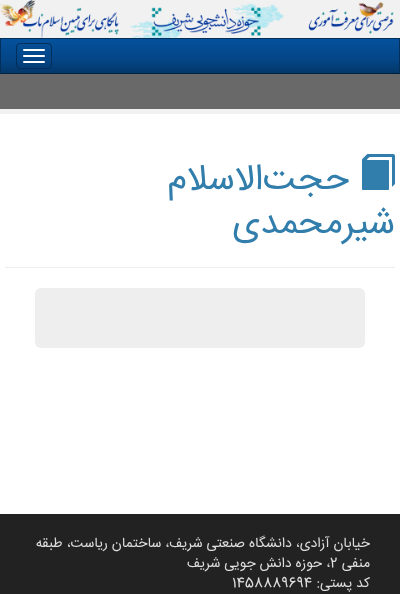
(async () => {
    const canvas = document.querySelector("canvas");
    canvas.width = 400;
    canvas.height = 594;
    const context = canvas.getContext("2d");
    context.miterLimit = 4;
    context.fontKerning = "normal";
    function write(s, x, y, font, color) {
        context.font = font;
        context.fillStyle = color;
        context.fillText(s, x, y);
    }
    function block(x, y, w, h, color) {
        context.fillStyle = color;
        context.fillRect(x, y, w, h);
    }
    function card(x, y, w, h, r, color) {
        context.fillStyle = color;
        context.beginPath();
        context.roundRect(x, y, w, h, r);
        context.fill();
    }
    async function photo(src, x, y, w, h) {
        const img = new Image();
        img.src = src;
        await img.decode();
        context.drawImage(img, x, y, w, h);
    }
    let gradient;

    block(0, 0, 400, 594, "rgb(241, 241, 241)");
    await photo("media/1.png", 0, 0, 394, 38);
    gradient = context.createLinearGradient(200, 39, 200, 73);
    gradient.addColorStop(0, "rgb(4, 81, 155)");
    gradient.addColorStop(0.6, "rgb(4, 70, 135)");
    gradient.addColorStop(1, "rgb(3, 55, 105)");
    context.fillStyle = gradient;
    context.fillRect(1, 39, 398, 34);
    block(0, 38, 400, 1, "rgb(2, 47, 90)");
    block(399, 38, 1, 36, "rgb(2, 47, 90)");
    block(0, 73, 400, 1, "rgb(2, 34, 65)");
    block(0, 38, 1, 36, "rgb(2, 47, 90)");
    context.beginPath();
    context.roundRect(16.5, 43.5, 35, 25, 3.5);
    context.strokeStyle = "rgb(2, 47, 90)";
    context.stroke();
    card(23, 49, 22, 2, 1, "rgb(255, 255, 255)");
    card(23, 55, 22, 2, 1, "rgb(255, 255, 255)");
    card(23, 61, 22, 2, 1, "rgb(255, 255, 255)");
    block(0, 74, 400, 35, "rgb(105, 105, 105)");
    block(0, 114, 400, 400, "rgb(255, 255, 255)");
    await photo("media/2.png", 362, 154, 33, 36);
    context.direction = "rtl";
    write("حجت‌الاسلام", 349, 189, "36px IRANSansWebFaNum", "rgb(49, 126, 172)");
    write("شیرمحمدی", 395, 233, "36px IRANSansWebFaNum", "rgb(49, 126, 172)");
    block(5, 267, 390, 1, "rgb(238, 238, 238)");
    card(35, 288, 330, 60, 6, "rgb(238, 238, 238)");
    block(0, 514, 400, 80, "rgb(34, 34, 34)");
    write("خیابان آزادی، دانشگاه صنعتی شریف، ساختمان ریاست، طبقه", 370, 547, "14px IRANSansWebFaNum", "rgb(221, 221, 221)");
    write("منفی", 370, 567, "14px IRANSansWebFaNum", "rgb(221, 221, 221)");
    context.direction = "ltr";
    write("2", 330, 567, "14px IRANSansWebFaNum", "rgb(221, 221, 221)");
    context.direction = "rtl";
    write("، حوزه دانش جویی شریف", 330, 567, "14px IRANSansWebFaNum", "rgb(221, 221, 221)");
    write("کد پستی:", 370, 587, "14px IRANSansWebFaNum", "rgb(221, 221, 221)");
    context.direction = "ltr";
    write("1458889694", 232, 587, "14px IRANSansWebFaNum", "rgb(221, 221, 221)");
})();
